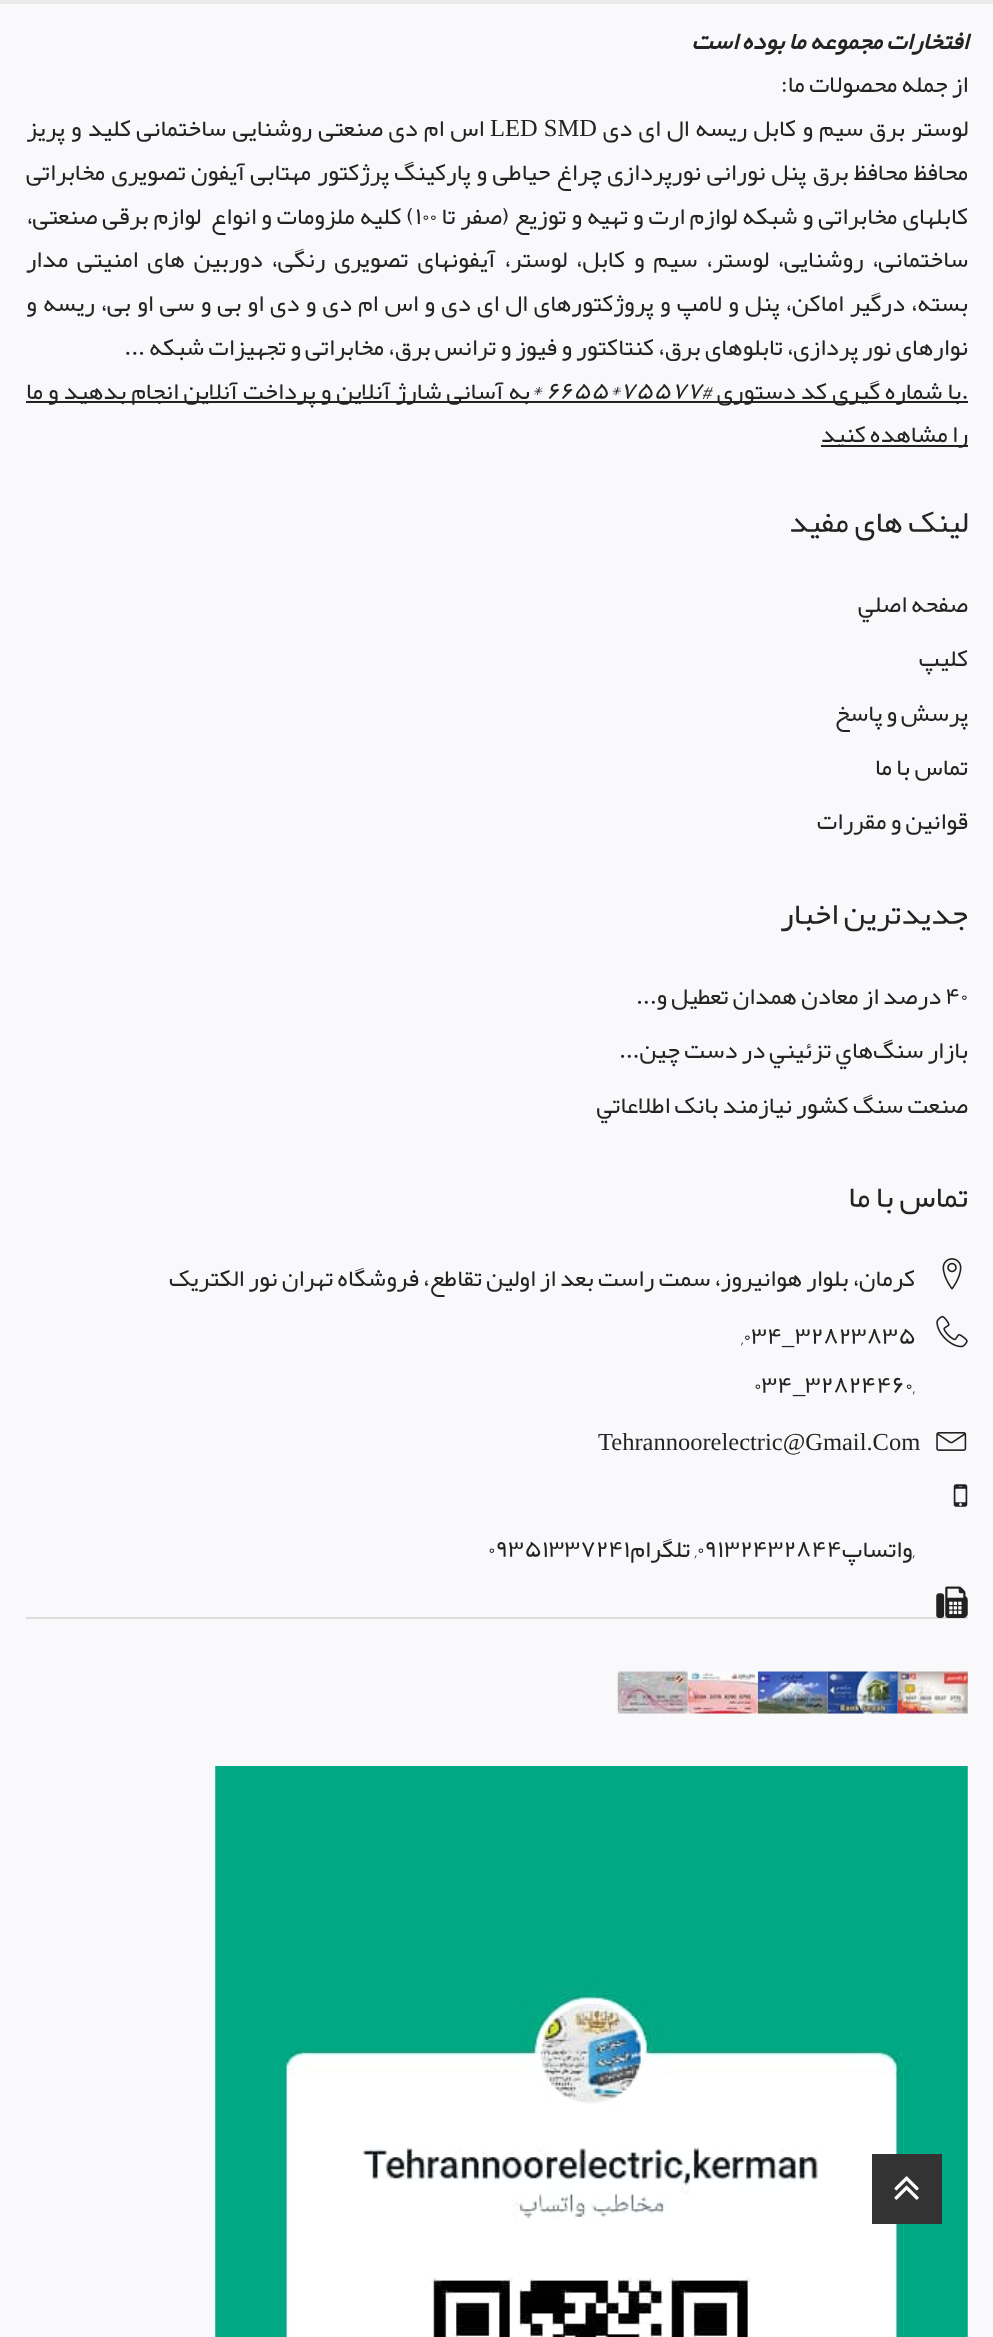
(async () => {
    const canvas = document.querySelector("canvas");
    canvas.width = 993;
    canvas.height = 2337;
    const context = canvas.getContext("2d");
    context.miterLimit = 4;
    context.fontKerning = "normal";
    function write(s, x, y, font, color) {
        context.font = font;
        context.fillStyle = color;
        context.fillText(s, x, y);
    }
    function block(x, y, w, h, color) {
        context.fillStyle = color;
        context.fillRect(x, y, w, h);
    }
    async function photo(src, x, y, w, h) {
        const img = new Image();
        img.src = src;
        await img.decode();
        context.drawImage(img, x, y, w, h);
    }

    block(0, 0, 993, 2337, "rgb(249, 249, 251)");
    block(0, 0, 993, 4, "rgb(235, 235, 235)");
    context.direction = "rtl";
    write("افتخارات مجموعه ما بوده است", 968, 49, "italic bold 24.5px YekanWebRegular", "rgb(35, 35, 35)");
    write("از جمله محصولات ما:", 968, 92, "24.5px YekanWebRegular", "rgb(35, 35, 35)");
    write("لوستر", 968, 136, "24.5px YekanWebRegular", "rgb(35, 35, 35)");
    write("برق", 905, 136, "24.5px YekanWebRegular", "rgb(35, 35, 35)");
    context.wordSpacing = "2px";
    write("سیم و کابل", 863, 136, "24.5px YekanWebRegular", "rgb(35, 35, 35)");
    context.wordSpacing = "0px";
    write("ریسه", 747, 136, "24.5px YekanWebRegular", "rgb(35, 35, 35)");
    context.wordSpacing = "2px";
    write("ال ای دی", 689, 136, "24.5px YekanWebRegular", "rgb(35, 35, 35)");
    context.wordSpacing = "0px";
    context.direction = "ltr";
    write("LED SMD", 490, 136, "24.5px Liberation Serif", "rgb(35, 35, 35)");
    context.wordSpacing = "2px";
    context.direction = "rtl";
    write("اس ام دی", 484, 136, "24.5px YekanWebRegular", "rgb(35, 35, 35)");
    context.wordSpacing = "0px";
    write("صنعتی", 383, 136, "24.5px YekanWebRegular", "rgb(35, 35, 35)");
    write("روشنایی", 312, 136, "24.5px YekanWebRegular", "rgb(35, 35, 35)");
    write("ساختمانی", 226, 136, "24.5px YekanWebRegular", "rgb(35, 35, 35)");
    context.wordSpacing = "2px";
    write("کلید و پریز", 131, 136, "24.5px YekanWebRegular", "rgb(35, 35, 35)");
    context.wordSpacing = "0px";
    write("محافظ", 968, 180, "24.5px YekanWebRegular", "rgb(35, 35, 35)");
    context.wordSpacing = "1px";
    write("محافظ برق", 908, 180, "24.5px YekanWebRegular", "rgb(35, 35, 35)");
    context.wordSpacing = "1.5px";
    write("پنل نورانی", 806, 180, "24.5px YekanWebRegular", "rgb(35, 35, 35)");
    context.wordSpacing = "0px";
    write("نورپردازی", 701, 180, "24.5px YekanWebRegular", "rgb(35, 35, 35)");
    context.wordSpacing = "1.5px";
    write("چراغ حیاطی و پارکینگ", 602, 180, "24.5px YekanWebRegular", "rgb(35, 35, 35)");
    context.wordSpacing = "0px";
    write("پرژکتور", 389, 180, "24.5px YekanWebRegular", "rgb(35, 35, 35)");
    write("مهتابی", 311, 180, "24.5px YekanWebRegular", "rgb(35, 35, 35)");
    context.wordSpacing = "1px";
    write("آیفون تصویری", 245, 180, "24.5px YekanWebRegular", "rgb(35, 35, 35)");
    context.wordSpacing = "0px";
    write("مخابراتی", 105, 180, "24.5px YekanWebRegular", "rgb(35, 35, 35)");
    context.wordSpacing = "1px";
    write("کابلهای مخابراتی و شبکه", 968, 224, "24.5px YekanWebRegular", "rgb(35, 35, 35)");
    context.wordSpacing = "0.75px";
    write("لوازم ارت و تهیه و توزیع (صفر تا", 737, 224, "24.5px YekanWebRegular", "rgb(35, 35, 35)");
    context.wordSpacing = "0px";
    context.direction = "ltr";
    write("100", 415, 224, "24.5px YekanWebRegular", "rgb(35, 35, 35)");
    context.wordSpacing = "0.75px";
    context.direction = "rtl";
    write(") کلیه ملزومات و انواع  لوازم برقی صنعتی،", 415, 224, "24.5px YekanWebRegular", "rgb(35, 35, 35)");
    context.wordSpacing = "4.75px";
    write("ساختمانی، روشنایی، لوستر، سیم و کابل، لوستر، آیفونهای تصویری رنگی، دوربین های امنیتی مدار", 968, 267, "24.5px YekanWebRegular", "rgb(35, 35, 35)");
    context.wordSpacing = "2px";
    write("بسته، درگیر اماکن، پنل و لامپ و پروژکتورهای ال ای دی و اس ام دی و دی او بی و سی او بی، ریسه و", 968, 311, "24.5px YekanWebRegular", "rgb(35, 35, 35)");
    context.wordSpacing = "0px";
    write("نوارهای نور پردازی، تابلوهای برق، کنتاکتور و فیوز و ترانس برق، مخابراتی و تجهیزات شبکه ...", 968, 355, "24.5px YekanWebRegular", "rgb(35, 35, 35)");
    block(712, 401, 256, 2, "rgb(35, 35, 35)");
    context.wordSpacing = "0.75px";
    write(".با شماره گیری کد دستوری", 968, 399, "24.5px YekanWebRegular", "rgb(35, 35, 35)");
    context.wordSpacing = "0px";
    context.direction = "ltr";
    write("6655*75577#", 546, 399, "italic 24.5px YekanWebRegular", "rgb(35, 35, 35)");
    write("*", 530, 399, "italic 24.5px YekanWebRegular", "rgb(35, 35, 35)");
    block(26, 401, 686, 2, "rgb(35, 35, 35)");
    context.wordSpacing = "0.75px";
    context.direction = "rtl";
    write("به آسانی شارژ آنلاین و پرداخت آنلاین انجام بدهید و ما", 530, 399, "24.5px YekanWebRegular", "rgb(35, 35, 35)");
    block(821, 445, 147, 2, "rgb(35, 35, 35)");
    context.wordSpacing = "0px";
    write("را مشاهده کنید", 968, 442, "24.5px YekanWebRegular", "rgb(35, 35, 35)");
    write("لینک های مفید", 968, 532, "31.5px YekanWebRegular", "rgb(35, 35, 35)");
    write("صفحه اصلي", 968, 612, "24.5px YekanWebRegular", "rgb(35, 35, 35)");
    write("کليپ", 968, 666, "24.5px YekanWebRegular", "rgb(35, 35, 35)");
    write("پرسش و پاسخ", 968, 721, "24.5px YekanWebRegular", "rgb(35, 35, 35)");
    write("تماس با ما", 968, 775, "24.5px YekanWebRegular", "rgb(35, 35, 35)");
    write("قوانين و مقررات", 968, 829, "24.5px YekanWebRegular", "rgb(35, 35, 35)");
    write("جدیدترین اخبار", 968, 924, "31.5px YekanWebRegular", "rgb(35, 35, 35)");
    context.direction = "ltr";
    write("40", 945, 1004, "24.5px YekanWebRegular", "rgb(35, 35, 35)");
    context.direction = "rtl";
    write("درصد از معادن همدان تعطيل و...", 941, 1004, "24.5px YekanWebRegular", "rgb(35, 35, 35)");
    write("بازار سنگ‌هاي تزئيني در دست چين...", 968, 1058, "24.5px YekanWebRegular", "rgb(35, 35, 35)");
    write("صنعت سنگ کشور نيازمند بانک اطلاعاتي", 968, 1113, "24.5px YekanWebRegular", "rgb(35, 35, 35)");
    write("تماس با ما", 968, 1207, "31.5px YekanWebRegular", "rgb(35, 35, 35)");
    await photo("media/1.png", 942, 1258, 20, 32);
    write("کرمان، بلوار هوانیروز، سمت راست بعد از اولین تقاطع، فروشگاه تهران نور الکتریک", 915, 1286, "24.5px YekanWebRegular", "rgb(35, 35, 35)");
    await photo("media/2.png", 936, 1315, 32, 33);
    context.direction = "ltr";
    write("32823835", 795, 1344, "24.5px YekanWebRegular", "rgb(35, 35, 35)");
    write(",034", 741, 1344, "24.5px YekanWebRegular", "rgb(35, 35, 35)");
    write("_", 782, 1344, "24.5px Liberation Serif", "rgb(35, 35, 35)");
    write("32824460,", 805, 1393, "24.5px YekanWebRegular", "rgb(35, 35, 35)");
    write("034", 754, 1393, "24.5px YekanWebRegular", "rgb(35, 35, 35)");
    write("_", 793, 1393, "24.5px Liberation Serif", "rgb(35, 35, 35)");
    await photo("media/3.png", 936, 1432, 31, 19);
    write("Tehrannoorelectric@Gmail.Com", 598, 1450, "24.5px Liberation Serif", "rgb(35, 35, 35)");
    await photo("media/4.png", 953, 1484, 15, 23);
    context.direction = "rtl";
    write(",واتساپ", 915, 1557, "24.5px YekanWebRegular", "rgb(35, 35, 35)");
    context.direction = "ltr";
    write("09132432844", 697, 1557, "24.5px YekanWebRegular", "rgb(35, 35, 35)");
    context.direction = "rtl";
    write(", تلگرام", 697, 1557, "24.5px YekanWebRegular", "rgb(35, 35, 35)");
    context.direction = "ltr";
    write("09351337241", 488, 1557, "24.5px YekanWebRegular", "rgb(35, 35, 35)");
    block(26, 1617, 942, 2, "rgb(221, 221, 221)");
    await photo("media/5.png", 936, 1586, 32, 32);
    await photo("media/6.png", 897, 1671, 71, 43);
    await photo("media/7.png", 827, 1671, 71, 43);
    await photo("media/8.png", 757, 1671, 71, 43);
    await photo("media/9.png", 687, 1671, 71, 43);
    await photo("media/10.png", 617, 1671, 71, 43);
    await photo("media/11.png", 215, 1766, 753, 571);
    block(872, 2154, 70, 70, "rgb(51, 51, 51)");
    await photo("media/12.png", 894, 2176, 25, 24);
})();
